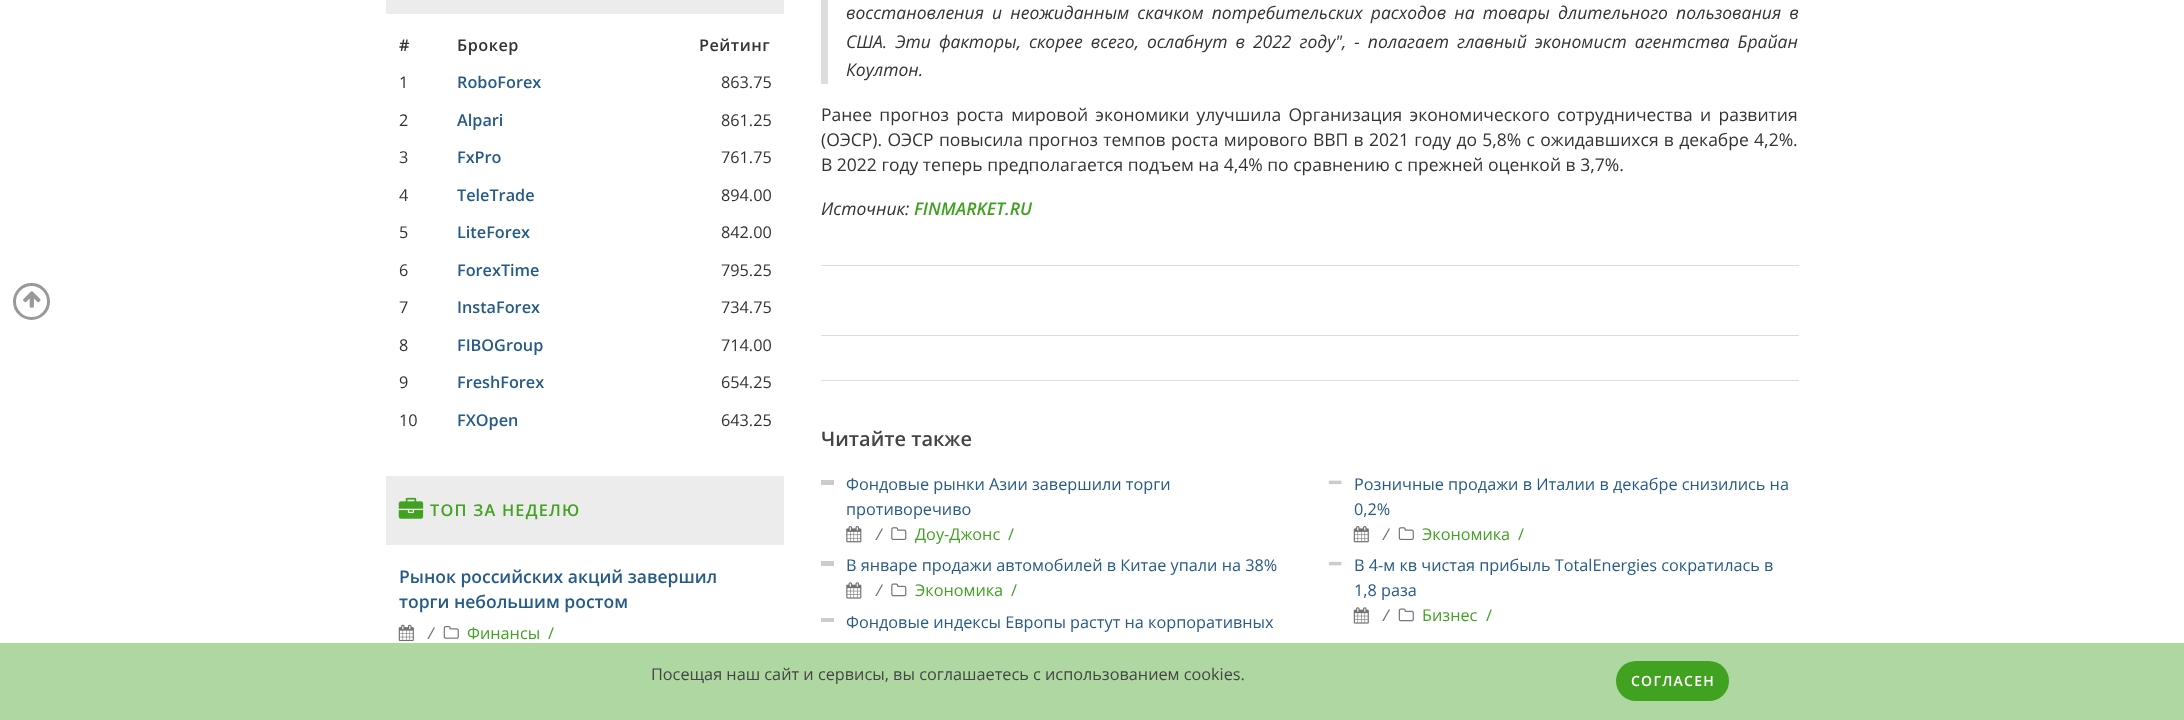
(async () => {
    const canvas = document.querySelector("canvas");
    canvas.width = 2184;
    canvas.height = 720;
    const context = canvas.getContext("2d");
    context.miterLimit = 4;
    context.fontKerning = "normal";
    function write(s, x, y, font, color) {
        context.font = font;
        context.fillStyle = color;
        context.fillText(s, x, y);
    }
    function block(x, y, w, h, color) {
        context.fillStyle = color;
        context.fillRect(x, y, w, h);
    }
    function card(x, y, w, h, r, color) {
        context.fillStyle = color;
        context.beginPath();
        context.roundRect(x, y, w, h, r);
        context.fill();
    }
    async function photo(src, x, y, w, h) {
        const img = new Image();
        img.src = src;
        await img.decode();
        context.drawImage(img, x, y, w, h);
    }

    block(0, 0, 2184, 720, "rgb(255, 255, 255)");
    context.beginPath();
    context.arc(31.5, 301.5, 17, 0, Math.PI * 2);
    context.strokeStyle = "rgb(153, 153, 153)";
    context.lineWidth = 3;
    context.stroke();
    await photo("media/1.png", 23, 291, 18, 17);
    block(386, 0, 398, 14, "rgb(237, 236, 236)");
    context.letterSpacing = "0.5px";
    write("#", 399, 51, "600 16.25px Open Sans", "rgb(51, 51, 51)");
    write("Брокер", 457, 51, "600 16.25px Open Sans", "rgb(51, 51, 51)");
    write("Рейтинг", 699, 51, "600 16.25px Open Sans", "rgb(51, 51, 51)");
    context.letterSpacing = "0px";
    write("1", 399, 88, "16.25px Open Sans", "rgb(51, 51, 51)");
    write("RoboForex", 457, 88, "600 16.25px Open Sans", "rgb(38, 90, 135)");
    write("863.75", 721, 88, "16.25px Open Sans", "rgb(51, 51, 51)");
    write("2", 399, 126, "16.25px Open Sans", "rgb(51, 51, 51)");
    write("Alpari", 457, 126, "600 16.25px Open Sans", "rgb(38, 90, 135)");
    write("861.25", 721, 126, "16.25px Open Sans", "rgb(51, 51, 51)");
    write("3", 399, 163, "16.25px Open Sans", "rgb(51, 51, 51)");
    write("FxPro", 457, 163, "600 16.25px Open Sans", "rgb(38, 90, 135)");
    write("761.75", 721, 163, "16.25px Open Sans", "rgb(51, 51, 51)");
    write("4", 399, 201, "16.25px Open Sans", "rgb(51, 51, 51)");
    write("TeleTrade", 457, 201, "600 16.25px Open Sans", "rgb(38, 90, 135)");
    write("894.00", 721, 201, "16.25px Open Sans", "rgb(51, 51, 51)");
    write("5", 399, 238, "16.25px Open Sans", "rgb(51, 51, 51)");
    write("LiteForex", 457, 238, "600 16.25px Open Sans", "rgb(38, 90, 135)");
    write("842.00", 721, 238, "16.25px Open Sans", "rgb(51, 51, 51)");
    write("6", 399, 276, "16.25px Open Sans", "rgb(51, 51, 51)");
    write("ForexTime", 457, 276, "600 16.25px Open Sans", "rgb(38, 90, 135)");
    write("795.25", 721, 276, "16.25px Open Sans", "rgb(51, 51, 51)");
    write("7", 399, 313, "16.25px Open Sans", "rgb(51, 51, 51)");
    write("InstaForex", 457, 313, "600 16.25px Open Sans", "rgb(38, 90, 135)");
    write("734.75", 721, 313, "16.25px Open Sans", "rgb(51, 51, 51)");
    write("8", 399, 351, "16.25px Open Sans", "rgb(51, 51, 51)");
    write("FIBOGroup", 457, 351, "600 16.25px Open Sans", "rgb(38, 90, 135)");
    write("714.00", 721, 351, "16.25px Open Sans", "rgb(51, 51, 51)");
    write("9", 399, 388, "16.25px Open Sans", "rgb(51, 51, 51)");
    write("FreshForex", 457, 388, "600 16.25px Open Sans", "rgb(38, 90, 135)");
    write("654.25", 721, 388, "16.25px Open Sans", "rgb(51, 51, 51)");
    write("10", 399, 426, "16.25px Open Sans", "rgb(51, 51, 51)");
    write("FXOpen", 457, 426, "600 16.25px Open Sans", "rgb(38, 90, 135)");
    write("643.25", 721, 426, "16.25px Open Sans", "rgb(51, 51, 51)");
    block(386, 476, 398, 69, "rgb(237, 236, 236)");
    await photo("media/2.png", 398, 497, 26, 22);
    context.letterSpacing = "1.25px";
    write("ТОП ЗА НЕДЕЛЮ", 430, 516, "600 16.25px Open Sans", "rgb(65, 161, 33)");
    context.letterSpacing = "0px";
    write("Рынок российских акций завершил", 399, 583, "600 17.5px Open Sans", "rgb(38, 90, 135)");
    write("торги небольшим ростом", 399, 608, "600 17.5px Open Sans", "rgb(38, 90, 135)");
    await photo("media/3.png", 398, 624, 16, 18);
    write("/", 428, 639, "italic 16.25px Open Sans", "rgb(113, 113, 113)");
    await photo("media/4.png", 443, 626, 16, 13);
    write("Финансы", 467, 639, "16.25px Open Sans", "rgb(65, 161, 33)");
    write("/", 548, 639, "16.25px Open Sans", "rgb(65, 161, 33)");
    block(821, 0, 7, 84, "rgb(221, 221, 221)");
    context.wordSpacing = "3.6px";
    write("восстановления и неожиданным скачком потребительских расходов на товары длительного пользования в", 846, 19, "italic 17.5px Open Sans", "rgb(51, 51, 51)");
    context.wordSpacing = "3.5px";
    write("США. Эти факторы, скорее всего, ослабнут в 2022 году\", - полагает главный экономист агентства Брайан", 846, 48, "italic 17.5px Open Sans", "rgb(51, 51, 51)");
    context.wordSpacing = "0px";
    write("Коултон.", 846, 76, "italic 17.5px Open Sans", "rgb(51, 51, 51)");
    context.wordSpacing = "2.75px";
    write("Ранее прогноз роста мировой экономики улучшила Организация экономического сотрудничества и развития", 821, 121, "17.5px Open Sans", "rgb(51, 51, 51)");
    context.wordSpacing = "0.75px";
    write("(ОЭСР). ОЭСР повысила прогноз темпов роста мирового ВВП в 2021 году до 5,8% с ожидавшихся в декабре 4,2%.", 821, 146, "17.5px Open Sans", "rgb(51, 51, 51)");
    context.wordSpacing = "0px";
    write("В 2022 году теперь предполагается подъем на 4,4% по сравнению с прежней оценкой в 3,7%.", 821, 171, "17.5px Open Sans", "rgb(51, 51, 51)");
    write("Источник:", 821, 215, "italic 17.5px Open Sans", "rgb(51, 51, 51)");
    write("FINMARKET.RU", 914, 215, "italic 600 17.5px Open Sans", "rgb(65, 161, 33)");
    block(821, 265, 978, 1, "rgb(221, 221, 221)");
    block(821, 335, 978, 1, "rgb(221, 221, 221)");
    block(821, 380, 978, 1, "rgb(221, 221, 221)");
    write("Читайте также", 821, 446, "600 20px Open Sans", "rgb(68, 68, 68)");
    block(821, 480, 13, 5, "rgb(204, 204, 204)");
    write("Фондовые рынки Азии завершили торги", 846, 490, "16.25px Open Sans", "rgb(38, 90, 135)");
    write("противоречиво", 846, 515, "16.25px Open Sans", "rgb(38, 90, 135)");
    await photo("media/5.png", 846, 526, 16, 17);
    write("/", 876, 540, "italic 16.25px Open Sans", "rgb(113, 113, 113)");
    await photo("media/6.png", 891, 527, 16, 13);
    write("Доу-Джонс", 915, 540, "16.25px Open Sans", "rgb(65, 161, 33)");
    write("/", 1008, 540, "16.25px Open Sans", "rgb(65, 161, 33)");
    block(821, 561, 13, 5, "rgb(204, 204, 204)");
    write("В январе продажи автомобилей в Китае упали на 38%", 846, 571, "16.25px Open Sans", "rgb(38, 90, 135)");
    await photo("media/7.png", 846, 582, 16, 17);
    write("/", 876, 596, "italic 16.25px Open Sans", "rgb(113, 113, 113)");
    await photo("media/8.png", 891, 583, 16, 14);
    write("Экономика", 915, 596, "16.25px Open Sans", "rgb(65, 161, 33)");
    write("/", 1011, 596, "16.25px Open Sans", "rgb(65, 161, 33)");
    block(821, 618, 13, 4, "rgb(204, 204, 204)");
    write("Фондовые индексы Европы растут на корпоративных", 846, 628, "16.25px Open Sans", "rgb(38, 90, 135)");
    await photo("media/9.png", 1328, 480, 14, 5);
    write("Розничные продажи в Италии в декабре снизились на", 1354, 490, "16.25px Open Sans", "rgb(38, 90, 135)");
    write("0,2%", 1354, 515, "16.25px Open Sans", "rgb(38, 90, 135)");
    await photo("media/10.png", 1353, 526, 16, 17);
    write("/", 1383, 540, "italic 16.25px Open Sans", "rgb(113, 113, 113)");
    await photo("media/11.png", 1398, 527, 16, 13);
    write("Экономика", 1422, 540, "16.25px Open Sans", "rgb(65, 161, 33)");
    write("/", 1518, 540, "16.25px Open Sans", "rgb(65, 161, 33)");
    await photo("media/12.png", 1328, 561, 14, 5);
    write("В 4-м кв чистая прибыль TotalEnergies сократилась в", 1354, 571, "16.25px Open Sans", "rgb(38, 90, 135)");
    write("1,8 раза", 1354, 596, "16.25px Open Sans", "rgb(38, 90, 135)");
    await photo("media/13.png", 1353, 607, 16, 17);
    write("/", 1383, 621, "italic 16.25px Open Sans", "rgb(113, 113, 113)");
    await photo("media/14.png", 1398, 608, 16, 14);
    write("Бизнес", 1422, 621, "16.25px Open Sans", "rgb(65, 161, 33)");
    write("/", 1486, 621, "16.25px Open Sans", "rgb(65, 161, 33)");
    block(0, 643, 2184, 77, "rgb(175, 215, 162)");
    write("Посещая наш сайт и сервисы, вы соглашаетесь с использованием cookies.", 651, 680, "16.25px Open Sans", "rgb(68, 68, 68)");
    card(1616, 661, 113, 40, 20, "rgb(65, 161, 33)");
    context.letterSpacing = "1.25px";
    write("СОГЛАСЕН", 1631, 686, "600 14px Open Sans", "rgb(255, 255, 255)");
})();
